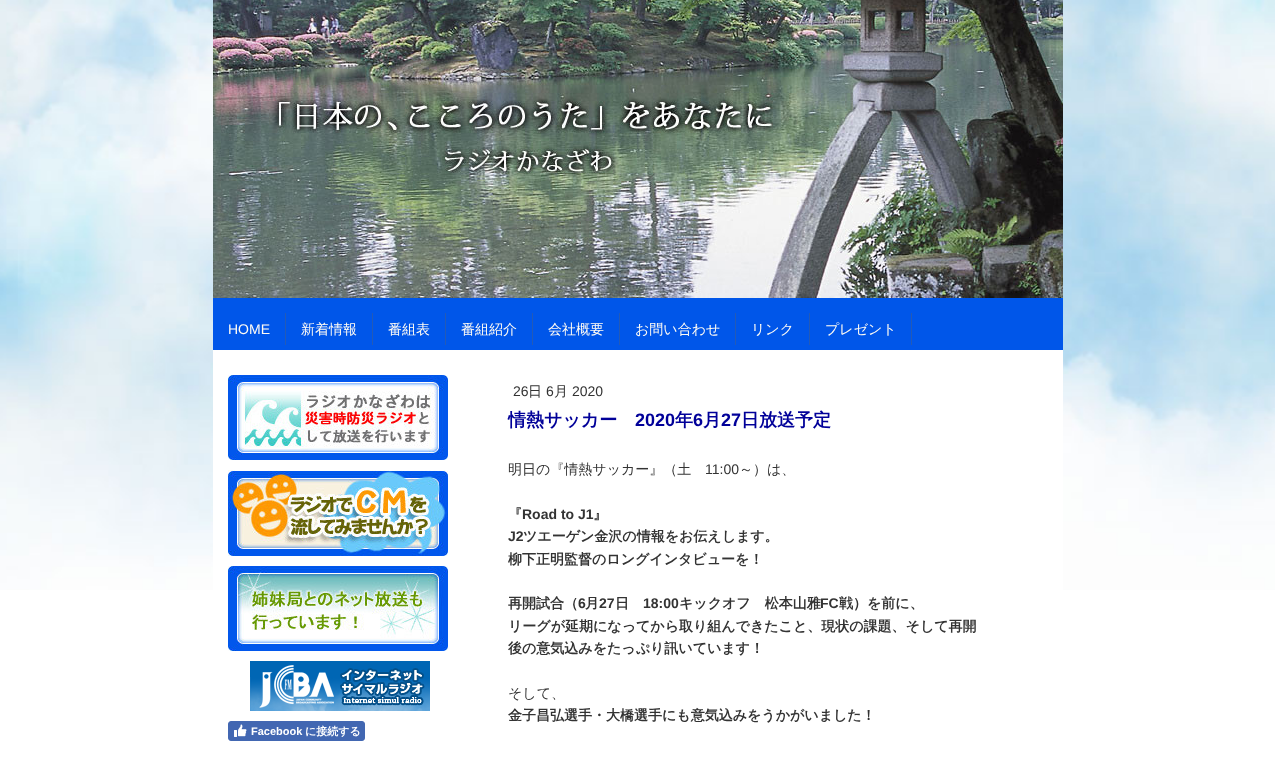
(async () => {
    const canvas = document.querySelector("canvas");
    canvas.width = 1275;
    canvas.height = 772;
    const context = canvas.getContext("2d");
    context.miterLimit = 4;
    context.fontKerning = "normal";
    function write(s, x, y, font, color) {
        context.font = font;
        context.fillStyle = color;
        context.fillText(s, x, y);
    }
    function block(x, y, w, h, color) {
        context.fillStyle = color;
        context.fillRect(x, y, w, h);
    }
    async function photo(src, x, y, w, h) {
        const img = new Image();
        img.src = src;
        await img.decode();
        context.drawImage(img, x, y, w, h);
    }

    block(0, 0, 1275, 772, "rgb(255, 255, 255)");
    await photo("media/1.png", 0, 0, 1275, 590);
    await photo("media/2.png", 213, 0, 850, 298);
    block(213, 298, 850, 52, "rgb(0, 86, 233)");
    block(285, 313, 1, 32, "rgb(36, 90, 182)");
    write("HOME", 228, 334, "14px Liberation Sans", "rgb(255, 252, 244)");
    block(372, 313, 1, 32, "rgb(36, 90, 182)");
    write("新着情報", 301, 334, "500 14px WenQuanYi Zen Hei", "rgb(255, 252, 244)");
    block(445, 313, 1, 32, "rgb(36, 90, 182)");
    write("番組表", 388, 334, "500 14px WenQuanYi Zen Hei", "rgb(255, 252, 244)");
    block(532, 313, 1, 32, "rgb(36, 90, 182)");
    write("番組紹介", 461, 334, "500 14px WenQuanYi Zen Hei", "rgb(255, 252, 244)");
    block(619, 313, 1, 32, "rgb(36, 90, 182)");
    write("会社概要", 548, 334, "500 14px WenQuanYi Zen Hei", "rgb(255, 252, 244)");
    block(735, 313, 1, 32, "rgb(36, 90, 182)");
    write("お問い合わせ", 635, 334, "500 14px WenQuanYi Zen Hei", "rgb(255, 252, 244)");
    block(809, 313, 1, 32, "rgb(36, 90, 182)");
    write("リンク", 751, 334, "500 14px WenQuanYi Zen Hei", "rgb(255, 252, 244)");
    block(911, 313, 1, 32, "rgb(36, 90, 182)");
    write("プレゼント", 825, 334, "500 14px WenQuanYi Zen Hei", "rgb(255, 252, 244)");
    block(213, 350, 850, 240, "rgb(255, 255, 255)");
    write("26", 513, 396, "14px Liberation Sans", "rgb(51, 51, 51)");
    write("日", 528, 396, "500 14px WenQuanYi Zen Hei", "rgb(51, 51, 51)");
    write("6", 546, 396, "14px Liberation Sans", "rgb(51, 51, 51)");
    write("月", 554, 396, "500 14px WenQuanYi Zen Hei", "rgb(51, 51, 51)");
    write("2020", 572, 396, "14px Liberation Sans", "rgb(51, 51, 51)");
    write("情熱サッカー", 508, 426, "bold 18px WenQuanYi Zen Hei", "rgb(1, 0, 153)");
    write("2020", 635, 426, "bold 18px Liberation Sans", "rgb(1, 0, 153)");
    write("年", 675, 426, "bold 18px WenQuanYi Zen Hei", "rgb(1, 0, 153)");
    write("6", 693, 426, "bold 18px Liberation Sans", "rgb(1, 0, 153)");
    write("月", 703, 426, "bold 18px WenQuanYi Zen Hei", "rgb(1, 0, 153)");
    write("27", 721, 426, "bold 18px Liberation Sans", "rgb(1, 0, 153)");
    write("日放送予定", 741, 426, "bold 18px WenQuanYi Zen Hei", "rgb(1, 0, 153)");
    write("明日の『情熱サッカー』（土", 508, 474, "500 14px WenQuanYi Zen Hei", "rgb(51, 51, 51)");
    write("11:00", 705, 474, "14px Liberation Sans", "rgb(51, 51, 51)");
    write("～）は、", 739, 474, "500 14px WenQuanYi Zen Hei", "rgb(51, 51, 51)");
    write("『", 508, 519, "bold 14px WenQuanYi Zen Hei", "rgb(51, 51, 51)");
    write("Road to J1", 522, 519, "bold 14px Liberation Sans", "rgb(51, 51, 51)");
    write("』", 593, 519, "bold 14px WenQuanYi Zen Hei", "rgb(51, 51, 51)");
    write("J2", 508, 541, "bold 14px Liberation Sans", "rgb(51, 51, 51)");
    write("ツエーゲン金沢の情報をお伝えします。", 523, 541, "bold 14px WenQuanYi Zen Hei", "rgb(51, 51, 51)");
    write("柳下正明監督のロングインタビューを！", 508, 564, "bold 14px WenQuanYi Zen Hei", "rgb(51, 51, 51)");
    write("再開試合（", 508, 608, "bold 14px WenQuanYi Zen Hei", "rgb(51, 51, 51)");
    write("6", 578, 608, "bold 14px Liberation Sans", "rgb(51, 51, 51)");
    write("月", 585, 608, "bold 14px WenQuanYi Zen Hei", "rgb(51, 51, 51)");
    write("27", 599, 608, "bold 14px Liberation Sans", "rgb(51, 51, 51)");
    write("日", 615, 608, "bold 14px WenQuanYi Zen Hei", "rgb(51, 51, 51)");
    write("18:00", 643, 608, "bold 14px Liberation Sans", "rgb(51, 51, 51)");
    write("キックオフ　松本山雅", 679, 608, "bold 14px WenQuanYi Zen Hei", "rgb(51, 51, 51)");
    write("FC", 820, 608, "bold 14px Liberation Sans", "rgb(51, 51, 51)");
    write("戦）を前に、", 839, 608, "bold 14px WenQuanYi Zen Hei", "rgb(51, 51, 51)");
    write("リーグが延期になってから取り組んできたこと、現状の課題、そして再開", 508, 631, "bold 14px WenQuanYi Zen Hei", "rgb(51, 51, 51)");
    write("後の意気込みをたっぷり訊いています！", 508, 653, "bold 14px WenQuanYi Zen Hei", "rgb(51, 51, 51)");
    write("そして、", 508, 698, "500 14px WenQuanYi Zen Hei", "rgb(51, 51, 51)");
    write("金子昌弘選手・大橋選手にも意気込みをうかがいました！", 508, 720, "bold 14px WenQuanYi Zen Hei", "rgb(51, 51, 51)");
    await photo("media/3.png", 228, 375, 220, 85);
    await photo("media/4.png", 228, 470, 220, 86);
    await photo("media/5.png", 228, 566, 220, 85);
    await photo("media/6.png", 250, 661, 180, 50);
    context.fillStyle = "rgb(66, 103, 178)";
    context.beginPath();
    context.roundRect(228.5, 721.5, 136, 19, 2.5);
    context.fill();
    context.strokeStyle = "rgb(66, 103, 178)";
    context.stroke();
    await photo("media/7.png", 234, 724, 13, 13);
    write("Facebook", 251, 735, "bold 11px Liberation Sans", "rgb(255, 255, 255)");
    write("に接続する", 305, 735, "bold 11px WenQuanYi Zen Hei", "rgb(255, 255, 255)");
})();
